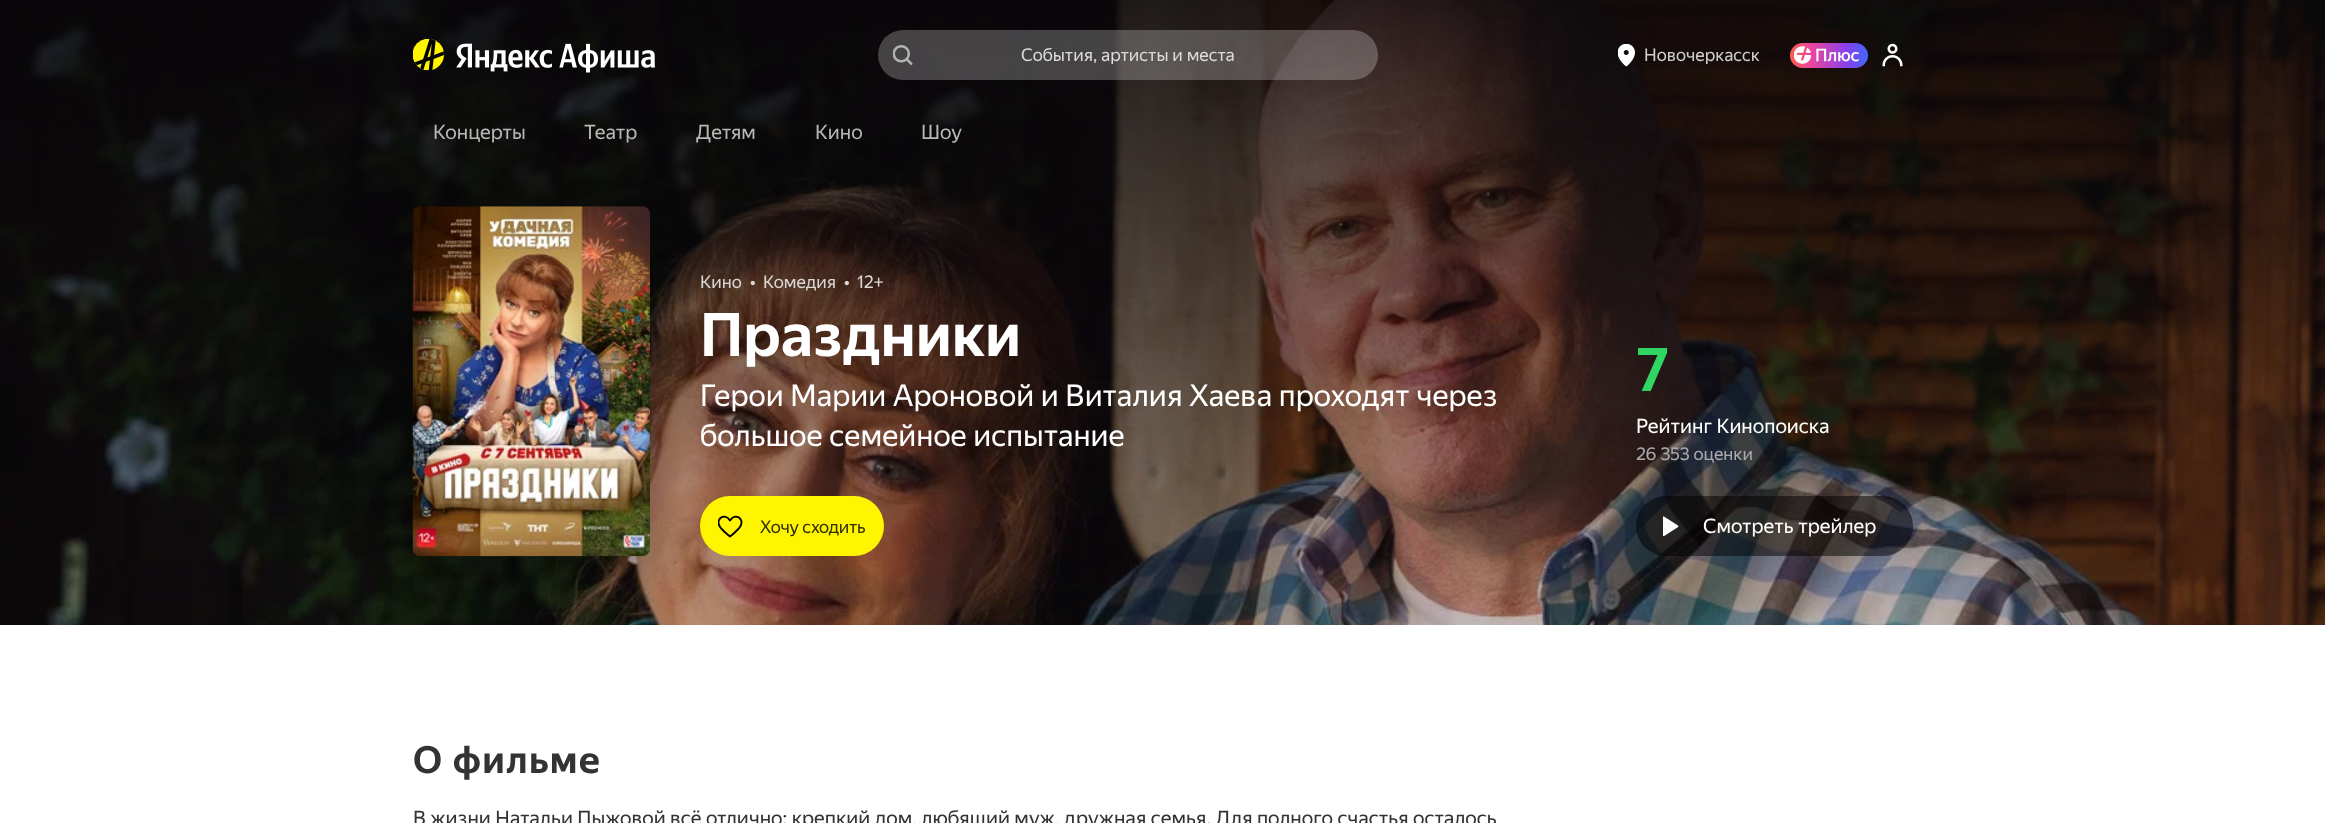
(async () => {
    const canvas = document.querySelector("canvas");
    canvas.width = 2325;
    canvas.height = 823;
    const context = canvas.getContext("2d");
    context.miterLimit = 4;
    context.fontKerning = "normal";
    function write(s, x, y, font, color) {
        context.font = font;
        context.fillStyle = color;
        context.fillText(s, x, y);
    }
    function block(x, y, w, h, color) {
        context.fillStyle = color;
        context.fillRect(x, y, w, h);
    }
    function card(x, y, w, h, r, color) {
        context.fillStyle = color;
        context.beginPath();
        context.roundRect(x, y, w, h, r);
        context.fill();
    }
    async function photo(src, x, y, w, h) {
        const img = new Image();
        img.src = src;
        await img.decode();
        context.drawImage(img, x, y, w, h);
    }
    let gradient;

    block(0, 0, 2325, 823, "rgb(255, 255, 255)");
    await photo("media/8.png", 0, 0, 2325, 625);
    await photo("media/1.png", 413, 39, 31, 32);
    await photo("media/2.png", 456, 43, 199, 30);
    await photo("media/3.png", 893, 45, 20, 20);
    write("События, артисты и места", 1021, 61, "17.5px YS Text", "rgb(208, 206, 206)");
    card(878, 30, 500, 50, 25, "rgba(255, 255, 255, 0.24)");
    await photo("media/4.png", 1618, 44, 17, 23);
    write("Новочеркасск", 1644, 61, "17.5px YS Text", "rgb(208, 206, 206)");
    gradient = context.createLinearGradient(1790, 55, 1868, 55);
    gradient.addColorStop(0, "rgb(255, 92, 77)");
    gradient.addColorStop(0.27, "rgb(235, 70, 159)");
    gradient.addColorStop(0.75, "rgb(131, 65, 239)");
    gradient.addColorStop(1, "rgb(63, 104, 249)");
    context.fillStyle = gradient;
    context.beginPath();
    context.roundRect(1790, 43, 78, 25, 12.5);
    context.fill();
    await photo("media/5.png", 1794, 46, 17, 18);
    await photo("media/6.png", 1816, 48, 43, 14);
    await photo("media/7.png", 1882, 43, 21, 24);
    write("Концерты", 433, 139, "20px YS Text", "rgb(183, 183, 182)");
    write("Театр", 584, 139, "20px YS Text", "rgb(183, 183, 182)");
    write("Детям", 696, 139, "20px YS Text", "rgb(183, 183, 182)");
    write("Кино", 815, 139, "20px YS Text", "rgb(183, 183, 182)");
    write("Шоу", 921, 139, "20px YS Text", "rgb(183, 183, 182)");
    context.fillStyle = "rgba(0, 0, 0, 0.3)";
    context.filter = "blur(19px)";
    context.beginPath();
    context.roundRect(413, 221, 237, 350, 8);
    context.fill();
    context.filter = "none";
    await photo("media/9.png", 412, 206, 238, 351);
    write("Кино", 700, 288, "17.5px YS Text", "rgb(218, 214, 211)");
    write("•", 750, 288, "bold 17.5px YS Text", "rgb(218, 214, 211)");
    write("Комедия", 763, 288, "17.5px YS Text", "rgb(218, 214, 211)");
    write("•", 844, 288, "bold 17.5px YS Text", "rgb(218, 214, 211)");
    write("12+", 857, 288, "17.5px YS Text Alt", "rgb(218, 214, 211)");
    write("Праздники", 700, 356, "bold 60px YS Text", "rgb(255, 255, 255)");
    write("Герои Марии Ароновой и Виталия Хаева проходят через", 700, 406, "30px YS Text", "rgb(255, 255, 255)");
    write("большое семейное испытание", 700, 446, "30px YS Text", "rgb(255, 255, 255)");
    card(700, 496, 184, 60, 30, "rgb(255, 245, 0)");
    context.save();
    context.beginPath();
    context.rect(718, 514, 25, 25);
    context.clip();
    context.beginPath();
    context.moveTo(730, 536.5);
    context.bezierCurveTo(726.5, 533.5, 721.5, 530, 719.5, 526);
    context.bezierCurveTo(715.5, 518.5, 725, 512.5, 730, 520.5);
    context.bezierCurveTo(735, 512.5, 744.5, 518.5, 740.5, 526);
    context.bezierCurveTo(738.5, 530, 733.5, 533.5, 730, 536.5);
    context.closePath();
    context.strokeStyle = "rgb(0, 0, 0)";
    context.lineWidth = 1.9;
    context.lineCap = "square";
    context.lineJoin = "round";
    context.stroke();
    context.restore();
    context.letterSpacing = "-0.25px";
    write("Хочу сходить", 760, 533, "17.5px YS Text", "rgb(51, 49, 0)");
    context.letterSpacing = "0px";
    write("7", 1636, 391, "bold 60px YS Text", "rgb(48, 214, 100)");
    write("Рейтинг Кинопоиска", 1636, 433, "20px YS Text", "rgb(255, 255, 255)");
    write("26 353 оценки", 1636, 460, "17.5px YS Text Alt", "rgb(170, 170, 172)");
    card(1636, 496, 277, 60, 30, "rgba(0, 0, 0, 0.5)");
    await photo("media/10.png", 1663, 516, 16, 20);
    write("Смотреть трейлер", 1703, 533, "20px YS Text", "rgb(255, 255, 255)");
    context.letterSpacing = "1.25px";
    write("О фильме", 413, 773, "bold 37.5px YS Text", "rgb(51, 51, 51)");
    context.letterSpacing = "0px";
    write("В жизни Натальи Пыжовой всё отлично: крепкий дом, любящий муж, дружная семья. Для полного счастья осталось", 413, 825, "20px YS Text", "rgb(51, 51, 51)");
})();
